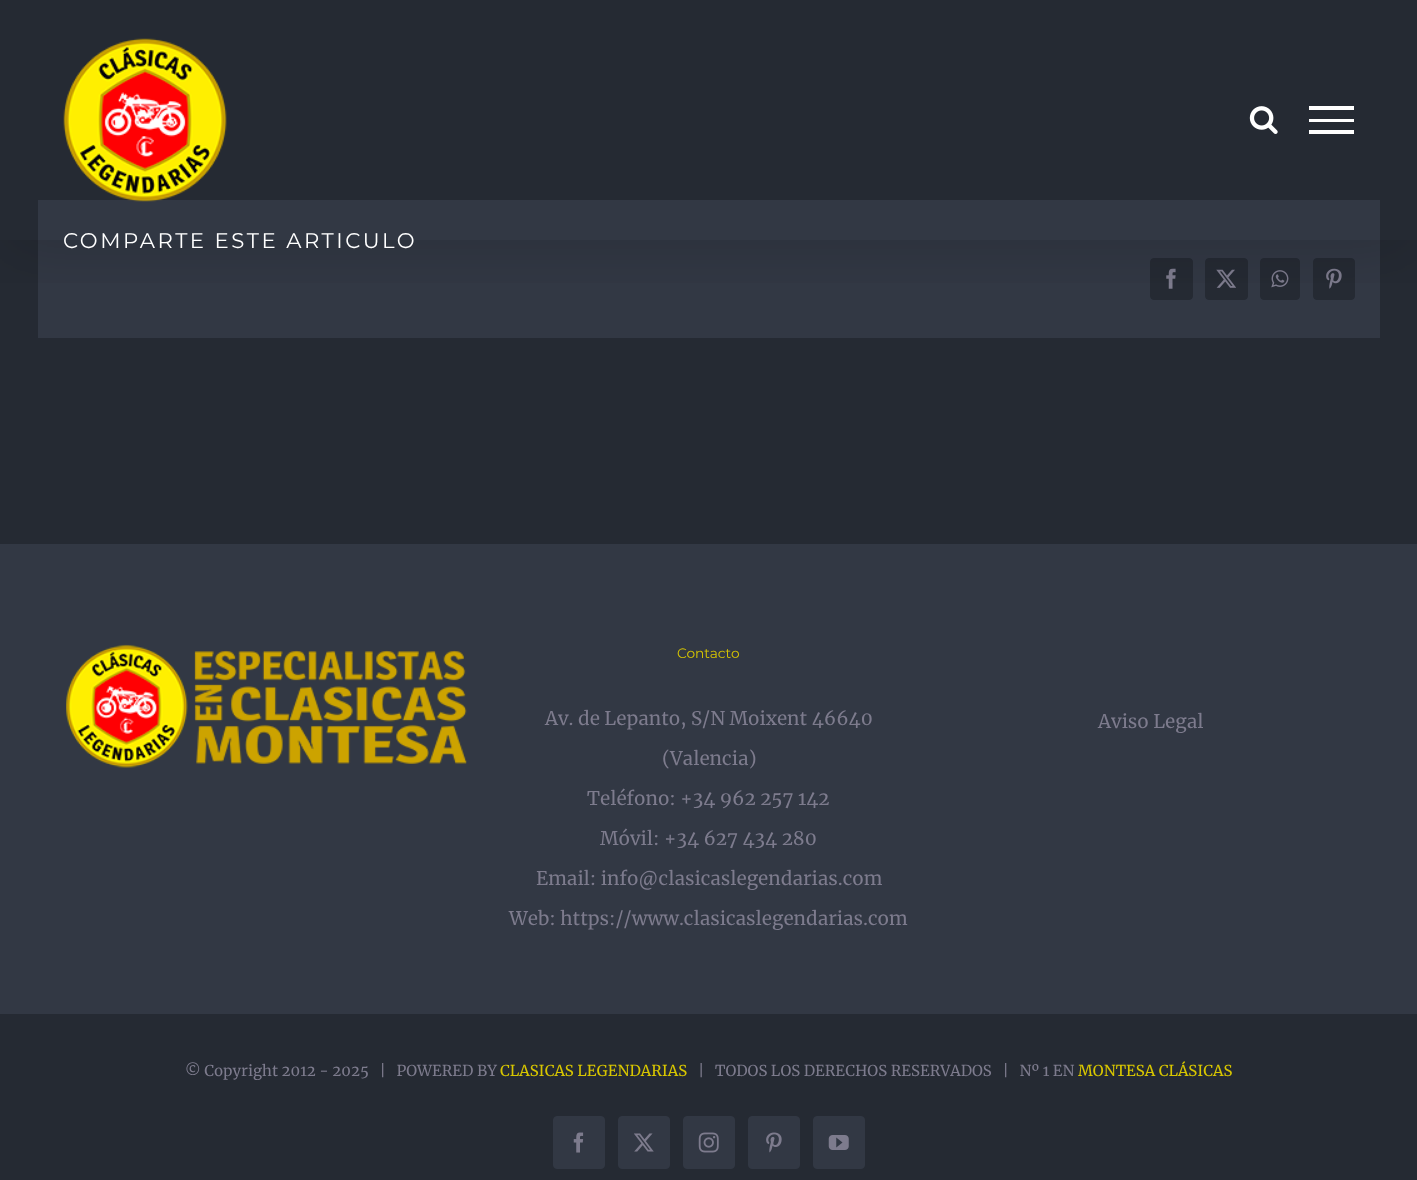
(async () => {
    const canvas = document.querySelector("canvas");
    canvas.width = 1417;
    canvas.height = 1180;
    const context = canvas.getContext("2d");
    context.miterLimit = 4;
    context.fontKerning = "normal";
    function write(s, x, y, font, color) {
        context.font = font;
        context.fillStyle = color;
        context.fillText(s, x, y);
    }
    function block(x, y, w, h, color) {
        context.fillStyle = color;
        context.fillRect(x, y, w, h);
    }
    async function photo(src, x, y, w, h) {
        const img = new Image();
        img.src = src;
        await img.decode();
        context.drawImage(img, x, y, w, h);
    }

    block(0, 0, 1417, 1180, "rgb(37, 42, 51)");
    block(38, 200, 1342, 138, "rgb(50, 56, 68)");
    context.fillStyle = "rgb(37, 42, 51)";
    context.beginPath();
    context.roundRect(1150.5, 258.5, 42, 41, 3.5);
    context.fill();
    context.strokeStyle = "rgb(37, 42, 51)";
    context.stroke();
    await photo("media/3.png", 1166, 268, 10, 21);
    context.beginPath();
    context.roundRect(1205.5, 258.5, 42, 41, 3.5);
    context.fill();
    context.stroke();
    await photo("media/4.png", 1216, 269, 20, 19);
    context.beginPath();
    context.roundRect(1260.5, 258.5, 39, 41, 3.5);
    context.fill();
    context.stroke();
    await photo("media/5.png", 1271, 270, 18, 18);
    context.beginPath();
    context.roundRect(1313.5, 258.5, 41, 41, 3.5);
    context.fill();
    context.stroke();
    await photo("media/6.png", 1326, 268, 16, 21);
    context.save();
    context.beginPath();
    context.rect(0, 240, 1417, 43);
    context.clip();
    context.fillStyle = "rgba(0, 0, 0, 0.14)";
    context.filter = "blur(31px)";
    context.beginPath();
    context.rect(3, 15, 1412, 235);
    context.fill();
    context.filter = "none";
    context.restore();
    await photo("media/1.png", 63, 38, 164, 164);
    await photo("media/2.png", 1249, 106, 29, 28);
    block(1309, 106, 45, 4, "rgb(255, 255, 255)");
    block(1309, 119, 45, 3, "rgb(255, 255, 255)");
    block(1309, 130, 45, 4, "rgb(255, 255, 255)");
    context.letterSpacing = "2.5px";
    write("COMPARTE ESTE ARTICULO", 63, 248, "21.25px Montserrat", "rgb(255, 255, 255)");
    block(0, 544, 1417, 470, "rgb(50, 56, 68)");
    await photo("media/7.png", 66, 644, 401, 124);
    context.letterSpacing = "0px";
    write("Contacto", 677, 658, "13.75px Montserrat", "rgb(216, 198, 0)");
    write("Av. de Lepanto, S/N Moixent 46640", 545, 725, "18.75px Merriweather", "rgb(125, 123, 141)");
    write("(Valencia)", 662, 765, "18.75px Merriweather", "rgb(125, 123, 141)");
    write("Teléfono: +34 962 257 142", 587, 805, "18.75px Merriweather", "rgb(125, 123, 141)");
    write("Móvil: +34 627 434 280", 600, 845, "18.75px Merriweather", "rgb(125, 123, 141)");
    write("Email: info@clasicaslegendarias.com", 536, 885, "18.75px Merriweather", "rgb(125, 123, 141)");
    write("Web: https://www.clasicaslegendarias.com", 509, 925, "18.75px Merriweather", "rgb(125, 123, 141)");
    write("Aviso Legal", 1098, 728, "18.75px Merriweather", "rgb(125, 123, 141)");
    write("© Copyright 2012 - 2025   |   POWERED BY", 185, 1076, "15px Merriweather", "rgb(125, 123, 141)");
    write("CLASICAS LEGENDARIAS", 500, 1076, "15px Merriweather", "rgb(216, 198, 0)");
    write("|   TODOS LOS DERECHOS RESERVADOS   |   Nº 1 EN", 698, 1076, "15px Merriweather", "rgb(125, 123, 141)");
    write("MONTESA CLÁSICAS", 1078, 1076, "15px Merriweather", "rgb(216, 198, 0)");
    context.fillStyle = "rgb(50, 56, 68)";
    context.beginPath();
    context.roundRect(553.5, 1116.5, 51, 52, 3.5);
    context.fill();
    context.strokeStyle = "rgb(50, 56, 68)";
    context.stroke();
    await photo("media/8.png", 573, 1132, 11, 21);
    context.beginPath();
    context.roundRect(618.5, 1116.5, 51, 52, 3.5);
    context.fill();
    context.stroke();
    await photo("media/9.png", 634, 1133, 20, 19);
    context.beginPath();
    context.roundRect(683.5, 1116.5, 51, 52, 3.5);
    context.fill();
    context.stroke();
    await photo("media/10.png", 698, 1132, 21, 21);
    context.beginPath();
    context.roundRect(748.5, 1116.5, 51, 52, 3.5);
    context.fill();
    context.stroke();
    await photo("media/11.png", 766, 1132, 16, 21);
    context.beginPath();
    context.roundRect(813.5, 1116.5, 51, 52, 3.5);
    context.fill();
    context.stroke();
    await photo("media/12.png", 828, 1135, 21, 15);
})();
